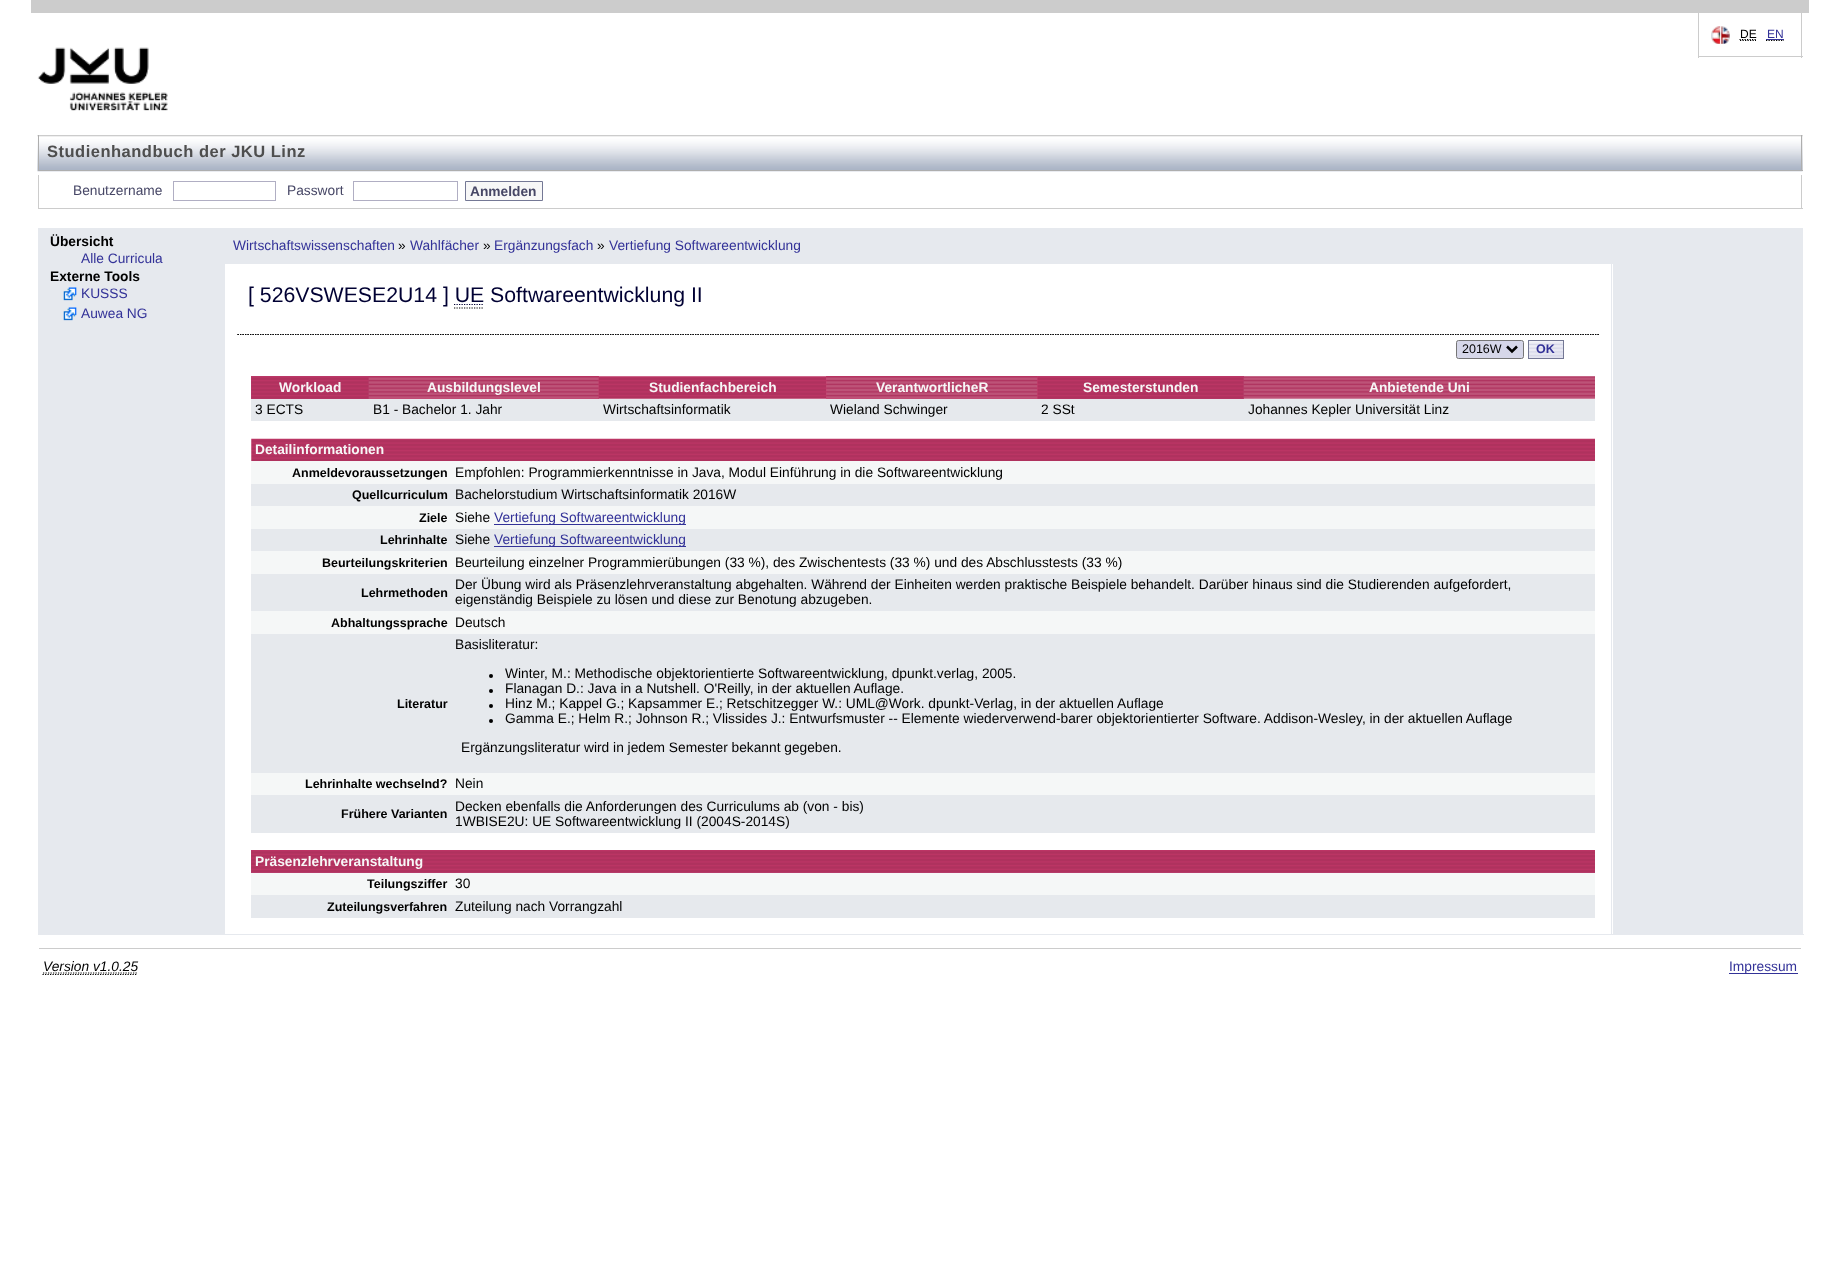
(async () => {
    const canvas = document.querySelector("canvas");
    canvas.width = 1840;
    canvas.height = 1282;
    const context = canvas.getContext("2d");
    context.miterLimit = 4;
    context.fontKerning = "normal";
    function write(s, x, y, font, color) {
        context.font = font;
        context.fillStyle = color;
        context.fillText(s, x, y);
    }
    function block(x, y, w, h, color) {
        context.fillStyle = color;
        context.fillRect(x, y, w, h);
    }
    async function photo(src, x, y, w, h) {
        const img = new Image();
        img.src = src;
        await img.decode();
        context.drawImage(img, x, y, w, h);
    }

    block(0, 0, 1840, 1282, "rgb(255, 255, 255)");
    block(31, 0, 1778, 13, "rgb(204, 204, 204)");
    block(1801, 13, 1, 45, "rgb(204, 204, 204)");
    block(1698, 56, 105, 1, "rgb(204, 204, 204)");
    block(1698, 13, 1, 45, "rgb(204, 204, 204)");
    await photo("media/1.png", 1711, 26, 19, 18);
    write("DE", 1740, 38, "12px Liberation Sans", "rgb(0, 0, 0)");
    context.beginPath();
    context.moveTo(1740, 40.5);
    context.lineTo(1756, 40.5);
    context.moveTo(1739.5, 39.5);
    context.lineTo(1757, 39.5);
    context.strokeStyle = "rgb(0, 0, 0)";
    context.lineWidth = 1.2;
    context.setLineDash([1.25, 1.25]);
    context.stroke();
    write("EN", 1767, 38, "12px Liberation Sans", "rgb(51, 50, 152)");
    context.beginPath();
    context.moveTo(1766, 40.5);
    context.lineTo(1784, 40.5);
    context.stroke();
    context.beginPath();
    context.moveTo(1766.5, 39.5);
    context.lineTo(1784, 39.5);
    context.strokeStyle = "rgb(51, 50, 152)";
    context.stroke();
    block(1766, 39, 18, 1, "rgb(51, 50, 152)");
    await photo("media/2.png", 37, 47, 131, 64);
    block(1802, 135, 1, 35, "rgb(231, 231, 231)");
    await photo("media/3.png", 37, 135, 1766, 37);
    block(1801, 135, 1, 36, "rgb(174, 174, 174)");
    block(38, 170, 1765, 1, "rgb(174, 174, 174)");
    block(38, 135, 1, 36, "rgb(174, 174, 174)");
    context.letterSpacing = "0.5px";
    write("Studienhandbuch der JKU Linz", 47, 157, "bold 16.5px Liberation Sans", "rgb(78, 78, 78)");
    block(1801, 175, 1, 34, "rgb(204, 204, 204)");
    block(38, 208, 1765, 1, "rgb(204, 204, 204)");
    block(38, 175, 1, 34, "rgb(204, 204, 204)");
    context.letterSpacing = "0px";
    write("Benutzername", 73, 195, "13.75px Liberation Sans", "rgb(71, 71, 102)");
    context.strokeStyle = "rgb(176, 174, 195)";
    context.lineWidth = 1;
    context.setLineDash([]);
    context.strokeRect(173.5, 181.5, 102, 19);
    write("Passwort", 287, 195, "13.75px Liberation Sans", "rgb(71, 71, 102)");
    context.strokeRect(353.5, 181.5, 104, 19);
    context.fillStyle = "rgb(247, 247, 247)";
    context.beginPath();
    context.rect(465.5, 181.5, 77, 19);
    context.fill();
    context.strokeStyle = "rgb(116, 120, 149)";
    context.stroke();
    write("Anmelden", 470, 196, "bold 13.75px Liberation Sans", "rgb(71, 71, 102)");
    block(38, 228, 187, 706, "rgb(230, 233, 238)");
    write("Übersicht", 50, 246, "bold 13.75px Liberation Sans", "rgb(0, 0, 0)");
    write("Alle Curricula", 81, 263, "13.75px Liberation Sans", "rgb(51, 50, 152)");
    write("Externe Tools", 50, 281, "bold 13.75px Liberation Sans", "rgb(0, 0, 0)");
    await photo("media/4.png", 63, 287, 14, 14);
    write("KUSSS", 81, 298, "13.75px Liberation Sans", "rgb(51, 50, 152)");
    await photo("media/5.png", 63, 307, 14, 14);
    write("Auwea NG", 81, 318, "13.75px Liberation Sans", "rgb(51, 50, 152)");
    block(225, 228, 1578, 36, "rgb(230, 233, 238)");
    write("Wirtschaftswissenschaften", 233, 250, "13.75px Liberation Sans", "rgb(51, 50, 152)");
    write("»", 398, 250, "13.75px Liberation Sans", "rgb(0, 0, 0)");
    write("Wahlfächer", 410, 250, "13.75px Liberation Sans", "rgb(51, 50, 152)");
    write("»", 483, 250, "13.75px Liberation Sans", "rgb(0, 0, 0)");
    write("Ergänzungsfach", 494, 250, "13.75px Liberation Sans", "rgb(51, 50, 152)");
    write("»", 597, 250, "13.75px Liberation Sans", "rgb(0, 0, 0)");
    write("Vertiefung Softwareentwicklung", 609, 250, "13.75px Liberation Sans", "rgb(51, 50, 152)");
    block(1611, 263, 1, 671, "rgb(230, 233, 238)");
    context.beginPath();
    context.moveTo(237.5, 334.5);
    context.lineTo(1599, 334.5);
    context.strokeStyle = "rgb(0, 0, 0)";
    context.lineWidth = 1.2;
    context.setLineDash([1.25, 1.25]);
    context.stroke();
    context.beginPath();
    context.moveTo(237.5, 334.5);
    context.lineTo(1599, 334.5);
    context.stroke();
    write("[ 526VSWESE2U14 ] UE Softwareentwicklung II", 248, 302, "21.25px Liberation Sans", "rgb(0, 0, 51)");
    context.beginPath();
    context.moveTo(454, 304.5);
    context.lineTo(484, 304.5);
    context.strokeStyle = "rgb(0, 0, 51)";
    context.stroke();
    context.beginPath();
    context.moveTo(454, 308);
    context.lineTo(484, 308);
    context.strokeStyle = "rgb(0, 0, 0)";
    context.stroke();
    context.fillStyle = "rgb(214, 215, 233)";
    context.beginPath();
    context.roundRect(1456.5, 340.5, 67, 18, 2);
    context.fill();
    context.strokeStyle = "rgb(118, 118, 118)";
    context.lineWidth = 1;
    context.setLineDash([]);
    context.stroke();
    context.beginPath();
    context.moveTo(1507, 346.5);
    context.lineTo(1512, 351.5);
    context.lineTo(1517, 346.5);
    context.strokeStyle = "rgb(0, 0, 0)";
    context.lineWidth = 2.5;
    context.stroke();
    write("2016W", 1462, 353, "12.5px Liberation Sans", "rgb(0, 0, 0)");
    await photo("media/6.png", 1529, 341, 34, 17);
    context.strokeStyle = "rgb(116, 120, 149)";
    context.lineWidth = 1;
    context.strokeRect(1528.5, 340.5, 35, 18);
    write("OK", 1536, 353, "bold 12.5px Liberation Sans", "rgb(51, 50, 152)");
    block(251, 376, 118, 23, "rgb(178, 67, 114)");
    await photo("media/7.png", 251, 376, 118, 23);
    write("Workload", 279, 392, "bold 13.75px Liberation Sans", "rgb(247, 247, 247)");
    block(369, 376, 230, 23, "rgb(208, 59, 111)");
    await photo("media/8.png", 368, 376, 231, 23);
    write("Ausbildungslevel", 427, 392, "bold 13.75px Liberation Sans", "rgb(247, 247, 247)");
    await photo("media/9.png", 598, 376, 228, 23);
    write("Studienfachbereich", 649, 392, "bold 13.75px Liberation Sans", "rgb(247, 247, 247)");
    block(826, 376, 212, 23, "rgb(208, 59, 111)");
    await photo("media/10.png", 826, 376, 212, 23);
    write("VerantwortlicheR", 876, 392, "bold 13.75px Liberation Sans", "rgb(247, 247, 247)");
    block(1038, 376, 206, 23, "rgb(178, 67, 114)");
    await photo("media/11.png", 1037, 376, 207, 23);
    write("Semesterstunden", 1083, 392, "bold 13.75px Liberation Sans", "rgb(247, 247, 247)");
    await photo("media/12.png", 1243, 376, 352, 23);
    write("Anbietende Uni", 1369, 392, "bold 13.75px Liberation Sans", "rgb(247, 247, 247)");
    block(251, 399, 1344, 22, "rgb(230, 233, 237)");
    write("3 ECTS", 255, 414, "13.75px Liberation Sans", "rgb(0, 0, 0)");
    write("B1 - Bachelor 1. Jahr", 373, 414, "13.75px Liberation Sans", "rgb(0, 0, 0)");
    write("Wirtschaftsinformatik", 603, 414, "13.75px Liberation Sans", "rgb(0, 0, 0)");
    write("Wieland Schwinger", 830, 414, "13.75px Liberation Sans", "rgb(0, 0, 0)");
    write("2 SSt", 1041, 414, "13.75px Liberation Sans", "rgb(0, 0, 0)");
    write("Johannes Kepler Universität Linz", 1248, 414, "13.75px Liberation Sans", "rgb(0, 0, 0)");
    await photo("media/13.png", 251, 438, 1344, 23);
    write("Detailinformationen", 255, 454, "bold 13.75px Liberation Sans", "rgb(247, 247, 247)");
    block(251, 461, 1344, 23, "rgb(245, 247, 247)");
    write("Anmeldevoraussetzungen", 292, 477, "bold 12.5px Liberation Sans", "rgb(0, 0, 0)");
    write("Empfohlen: Programmierkenntnisse in Java, Modul Einführung in die Softwareentwicklung", 455, 477, "13.75px Liberation Sans", "rgb(0, 0, 0)");
    block(251, 484, 1344, 22, "rgb(230, 233, 237)");
    write("Quellcurriculum", 352, 499, "bold 12.5px Liberation Sans", "rgb(0, 0, 0)");
    write("Bachelorstudium Wirtschaftsinformatik 2016W", 455, 499, "13.75px Liberation Sans", "rgb(0, 0, 0)");
    block(251, 506, 1344, 23, "rgb(245, 247, 247)");
    write("Ziele", 419, 522, "bold 12.5px Liberation Sans", "rgb(0, 0, 0)");
    write("Siehe", 455, 522, "13.75px Liberation Sans", "rgb(0, 0, 0)");
    block(494, 524, 192, 1, "rgb(51, 50, 152)");
    write("Vertiefung Softwareentwicklung", 494, 522, "13.75px Liberation Sans", "rgb(51, 50, 152)");
    block(251, 529, 1344, 22, "rgb(230, 233, 237)");
    write("Lehrinhalte", 380, 544, "bold 12.5px Liberation Sans", "rgb(0, 0, 0)");
    write("Siehe", 455, 544, "13.75px Liberation Sans", "rgb(0, 0, 0)");
    block(494, 546, 192, 1, "rgb(51, 50, 152)");
    write("Vertiefung Softwareentwicklung", 494, 544, "13.75px Liberation Sans", "rgb(51, 50, 152)");
    block(251, 551, 1344, 23, "rgb(245, 247, 247)");
    write("Beurteilungskriterien", 322, 567, "bold 12.5px Liberation Sans", "rgb(0, 0, 0)");
    write("Beurteilung einzelner Programmierübungen (33 %), des Zwischentests (33 %) und des Abschlusstests (33 %)", 455, 567, "13.75px Liberation Sans", "rgb(0, 0, 0)");
    block(251, 574, 1344, 37, "rgb(230, 233, 237)");
    write("Lehrmethoden", 361, 597, "bold 12.5px Liberation Sans", "rgb(0, 0, 0)");
    write("Der Übung wird als Präsenzlehrveranstaltung abgehalten. Während der Einheiten werden praktische Beispiele behandelt. Darüber hinaus sind die Studierenden aufgefordert,", 455, 589, "13.75px Liberation Sans", "rgb(0, 0, 0)");
    write("eigenständig Beispiele zu lösen und diese zur Benotung abzugeben.", 455, 604, "13.75px Liberation Sans", "rgb(0, 0, 0)");
    block(251, 611, 1344, 23, "rgb(245, 247, 247)");
    write("Abhaltungssprache", 331, 627, "bold 12.5px Liberation Sans", "rgb(0, 0, 0)");
    write("Deutsch", 455, 627, "13.75px Liberation Sans", "rgb(0, 0, 0)");
    block(251, 634, 1344, 139, "rgb(230, 233, 237)");
    write("Literatur", 397, 708, "bold 12.5px Liberation Sans", "rgb(0, 0, 0)");
    write("Basisliteratur:", 455, 649, "13.75px Liberation Sans", "rgb(0, 0, 0)");
    context.beginPath();
    context.arc(491, 676, 2, 0, Math.PI * 2);
    context.fill();
    write("Winter, M.: Methodische objektorientierte Softwareentwicklung, dpunkt.verlag, 2005.", 505, 678, "13.75px Liberation Sans", "rgb(0, 0, 0)");
    context.beginPath();
    context.arc(491, 691, 2, 0, Math.PI * 2);
    context.fill();
    write("Flanagan D.: Java in a Nutshell. O'Reilly, in der aktuellen Auflage.", 505, 693, "13.75px Liberation Sans", "rgb(0, 0, 0)");
    context.beginPath();
    context.arc(491, 706, 2, 0, Math.PI * 2);
    context.fill();
    write("Hinz M.; Kappel G.; Kapsammer E.; Retschitzegger W.: UML@Work. dpunkt-Verlag, in der aktuellen Auflage", 505, 708, "13.75px Liberation Sans", "rgb(0, 0, 0)");
    context.beginPath();
    context.arc(491, 721, 2, 0, Math.PI * 2);
    context.fill();
    write("Gamma E.; Helm R.; Johnson R.; Vlissides J.: Entwurfsmuster -- Elemente wiederverwend-barer objektorientierter Software. Addison-Wesley, in der aktuellen Auflage", 505, 723, "13.75px Liberation Sans", "rgb(0, 0, 0)");
    write("Ergänzungsliteratur wird in jedem Semester bekannt gegeben.", 461, 752, "13.75px Liberation Sans", "rgb(0, 0, 0)");
    block(251, 773, 1344, 22, "rgb(245, 247, 247)");
    write("Lehrinhalte wechselnd?", 305, 788, "bold 12.5px Liberation Sans", "rgb(0, 0, 0)");
    write("Nein", 455, 788, "13.75px Liberation Sans", "rgb(0, 0, 0)");
    block(251, 795, 1344, 38, "rgb(230, 233, 237)");
    write("Frühere Varianten", 341, 818, "bold 12.5px Liberation Sans", "rgb(0, 0, 0)");
    write("Decken ebenfalls die Anforderungen des Curriculums ab (von - bis)", 455, 811, "13.75px Liberation Sans", "rgb(0, 0, 0)");
    write("1WBISE2U: UE Softwareentwicklung II (2004S-2014S)", 455, 826, "13.75px Liberation Sans", "rgb(0, 0, 0)");
    block(251, 850, 1344, 23, "rgb(178, 67, 114)");
    await photo("media/14.png", 251, 850, 1344, 23);
    write("Präsenzlehrveranstaltung", 255, 866, "bold 13.75px Liberation Sans", "rgb(247, 247, 247)");
    block(251, 873, 1344, 22, "rgb(245, 247, 247)");
    write("Teilungsziffer", 367, 888, "bold 12.5px Liberation Sans", "rgb(0, 0, 0)");
    write("30", 455, 888, "13.75px Liberation Sans", "rgb(0, 0, 0)");
    block(251, 895, 1344, 23, "rgb(230, 233, 237)");
    write("Zuteilungsverfahren", 327, 911, "bold 12.5px Liberation Sans", "rgb(0, 0, 0)");
    write("Zuteilung nach Vorrangzahl", 455, 911, "13.75px Liberation Sans", "rgb(0, 0, 0)");
    block(1613, 264, 190, 670, "rgb(230, 233, 238)");
    block(38, 934, 1766, 1, "rgb(230, 233, 238)");
    block(39, 948, 1762, 1, "rgb(204, 204, 204)");
    write("Version v1.0.25", 43, 971, "italic 13.75px Liberation Sans", "rgb(0, 0, 0)");
    context.beginPath();
    context.moveTo(42.5, 974.5);
    context.lineTo(137.5, 974.5);
    context.strokeStyle = "rgb(0, 0, 0)";
    context.lineWidth = 1.2;
    context.setLineDash([1.25, 1.25]);
    context.stroke();
    context.beginPath();
    context.moveTo(43, 973);
    context.lineTo(138, 973);
    context.stroke();
    block(1729, 973, 69, 1, "rgb(51, 50, 152)");
    write("Impressum", 1729, 971, "13.75px Liberation Sans", "rgb(51, 50, 152)");
})();
